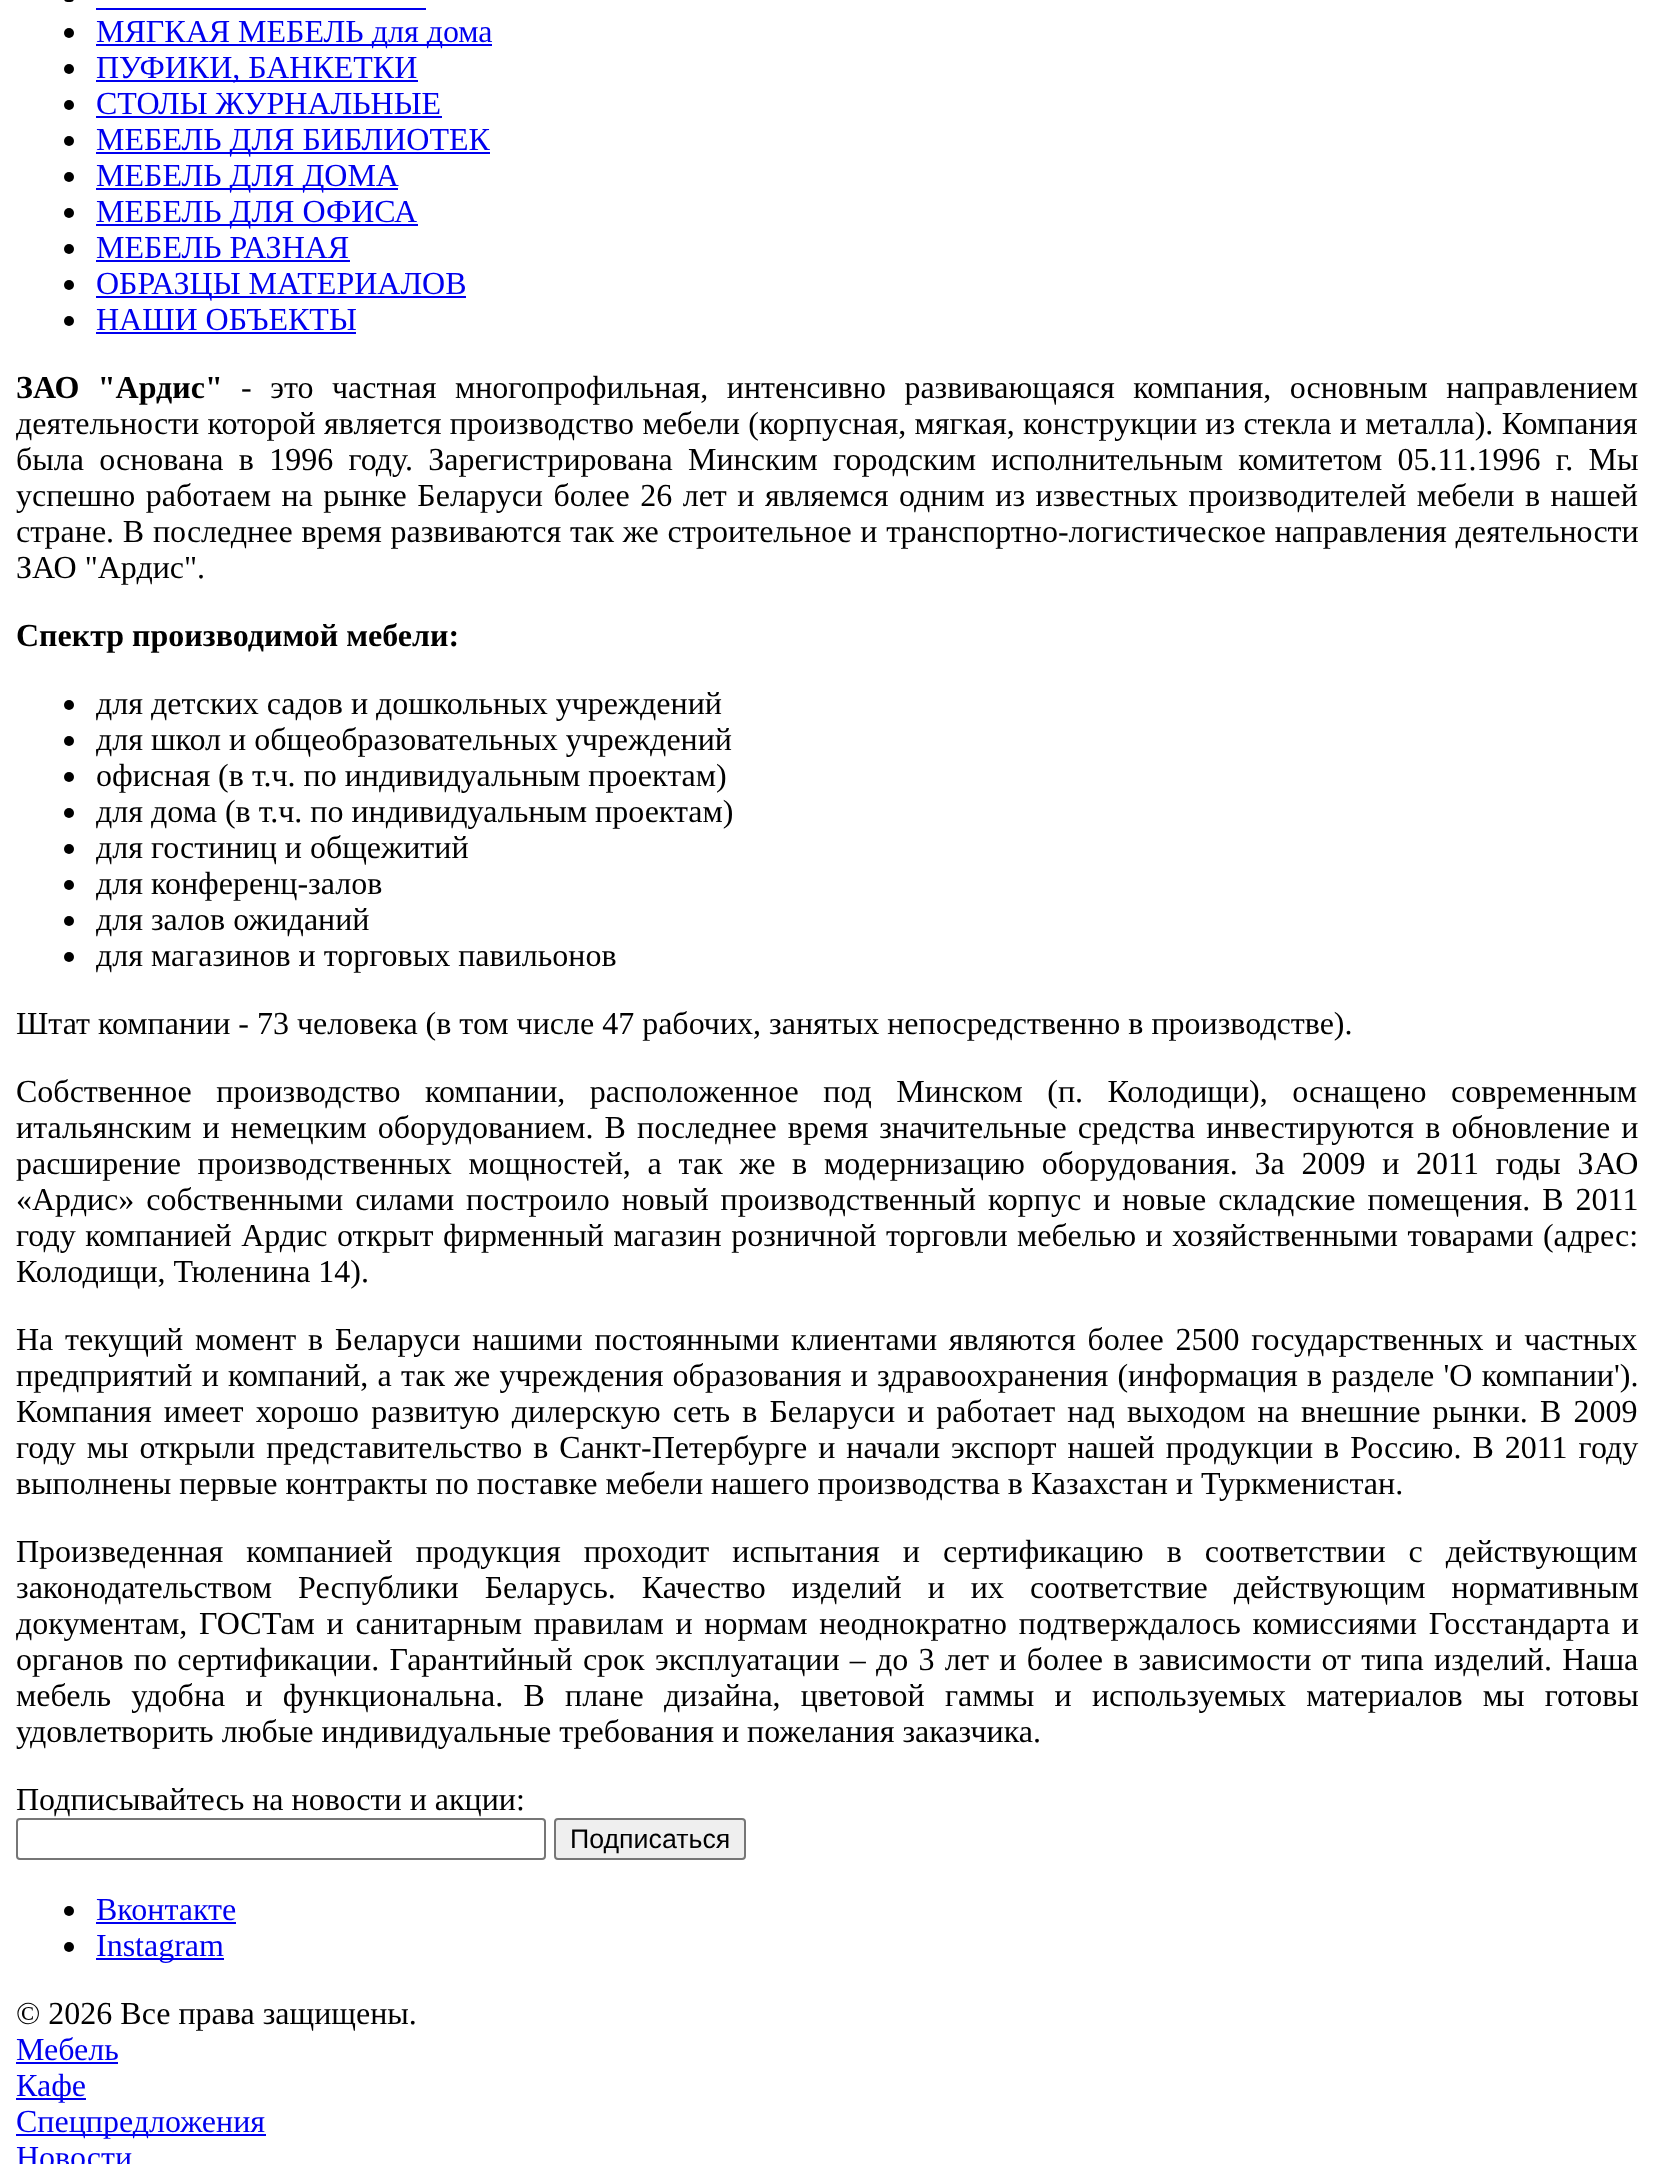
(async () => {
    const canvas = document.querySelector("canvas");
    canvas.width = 1653;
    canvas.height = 2164;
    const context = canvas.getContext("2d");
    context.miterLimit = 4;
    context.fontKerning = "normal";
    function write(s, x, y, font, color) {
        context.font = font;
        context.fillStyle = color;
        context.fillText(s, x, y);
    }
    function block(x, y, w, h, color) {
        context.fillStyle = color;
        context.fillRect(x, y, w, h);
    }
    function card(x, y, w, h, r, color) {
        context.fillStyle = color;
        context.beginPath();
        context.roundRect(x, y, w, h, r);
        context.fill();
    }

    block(0, 0, 1653, 2164, "rgb(255, 255, 255)");
    card(64, -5, 10, 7, 5, "rgb(0, 0, 0)");
    block(96, 8, 330, 2, "rgb(0, 0, 238)");
    context.fillStyle = "rgb(0, 0, 0)";
    context.beginPath();
    context.arc(69, 33, 5, 0, Math.PI * 2);
    context.fill();
    block(96, 44, 396, 2, "rgb(0, 0, 238)");
    write("МЯГКАЯ МЕБЕЛЬ для дома", 96, 42, "32px Liberation Serif", "rgb(0, 0, 238)");
    context.fillStyle = "rgb(0, 0, 0)";
    context.beginPath();
    context.arc(69, 69, 5, 0, Math.PI * 2);
    context.fill();
    block(96, 80, 322, 2, "rgb(0, 0, 238)");
    write("ПУФИКИ, БАНКЕТКИ", 96, 78, "32px Liberation Serif", "rgb(0, 0, 238)");
    context.fillStyle = "rgb(0, 0, 0)";
    context.beginPath();
    context.arc(69, 105, 5, 0, Math.PI * 2);
    context.fill();
    write("СТОЛЫ ЖУРНАЛЬНЫЕ", 96, 114, "32px Liberation Serif", "rgb(0, 0, 238)");
    block(96, 116, 346, 2, "rgb(0, 0, 238)");
    context.fillStyle = "rgb(0, 0, 0)";
    context.beginPath();
    context.arc(69, 141, 5, 0, Math.PI * 2);
    context.fill();
    block(96, 152, 394, 2, "rgb(0, 0, 238)");
    write("МЕБЕЛЬ ДЛЯ БИБЛИОТЕК", 96, 150, "32px Liberation Serif", "rgb(0, 0, 238)");
    context.fillStyle = "rgb(0, 0, 0)";
    context.beginPath();
    context.arc(69, 177, 5, 0, Math.PI * 2);
    context.fill();
    block(96, 188, 302, 2, "rgb(0, 0, 238)");
    write("МЕБЕЛЬ ДЛЯ ДОМА", 96, 186, "32px Liberation Serif", "rgb(0, 0, 238)");
    context.fillStyle = "rgb(0, 0, 0)";
    context.beginPath();
    context.arc(69, 213, 5, 0, Math.PI * 2);
    context.fill();
    block(96, 224, 322, 2, "rgb(0, 0, 238)");
    write("МЕБЕЛЬ ДЛЯ ОФИСА", 96, 222, "32px Liberation Serif", "rgb(0, 0, 238)");
    context.fillStyle = "rgb(0, 0, 0)";
    context.beginPath();
    context.arc(69, 249, 5, 0, Math.PI * 2);
    context.fill();
    write("МЕБЕЛЬ РАЗНАЯ", 96, 258, "32px Liberation Serif", "rgb(0, 0, 238)");
    block(96, 260, 254, 2, "rgb(0, 0, 238)");
    context.fillStyle = "rgb(0, 0, 0)";
    context.beginPath();
    context.arc(69, 285, 5, 0, Math.PI * 2);
    context.fill();
    block(96, 296, 370, 2, "rgb(0, 0, 238)");
    write("ОБРАЗЦЫ МАТЕРИАЛОВ", 96, 294, "32px Liberation Serif", "rgb(0, 0, 238)");
    context.fillStyle = "rgb(0, 0, 0)";
    context.beginPath();
    context.arc(69, 321, 5, 0, Math.PI * 2);
    context.fill();
    write("НАШИ ОБЪЕКТЫ", 96, 330, "32px Liberation Serif", "rgb(0, 0, 238)");
    block(96, 332, 260, 2, "rgb(0, 0, 238)");
    context.wordSpacing = "10.5px";
    write("ЗАО \"Ардис\"", 16, 398, "bold 32px Liberation Serif", "rgb(0, 0, 0)");
    write("- это частная многопрофильная, интенсивно развивающаяся компания, основным направлением", 241, 398, "32px Liberation Serif", "rgb(0, 0, 0)");
    context.wordSpacing = "0.3px";
    write("деятельности которой является производство мебели (корпусная, мягкая, конструкции из стекла и металла). Компания", 16, 434, "32px Liberation Serif", "rgb(0, 0, 0)");
    context.wordSpacing = "7.25px";
    write("была основана в 1996 году. Зарегистрирована Минским городским исполнительным комитетом 05.11.1996 г. Мы", 16, 470, "32px Liberation Serif", "rgb(0, 0, 0)");
    context.wordSpacing = "2.5px";
    write("успешно работаем на рынке Беларуси более 26 лет и являемся одним из известных производителей мебели в нашей", 16, 506, "32px Liberation Serif", "rgb(0, 0, 0)");
    context.wordSpacing = "0.75px";
    write("стране. В последнее время развиваются так же строительное и транспортно-логистическое направления деятельности", 16, 542, "32px Liberation Serif", "rgb(0, 0, 0)");
    context.wordSpacing = "0px";
    write("ЗАО \"Ардис\".", 16, 578, "32px Liberation Serif", "rgb(0, 0, 0)");
    write("Спектр производимой мебели:", 16, 646, "bold 32px Liberation Serif", "rgb(0, 0, 0)");
    context.beginPath();
    context.arc(69, 705, 5, 0, Math.PI * 2);
    context.fill();
    write("для детских садов и дошкольных учреждений", 96, 714, "32px Liberation Serif", "rgb(0, 0, 0)");
    context.beginPath();
    context.arc(69, 741, 5, 0, Math.PI * 2);
    context.fill();
    write("для школ и общеобразовательных учреждений", 96, 750, "32px Liberation Serif", "rgb(0, 0, 0)");
    context.beginPath();
    context.arc(69, 777, 5, 0, Math.PI * 2);
    context.fill();
    write("офисная (в т.ч. по индивидуальным проектам)", 96, 786, "32px Liberation Serif", "rgb(0, 0, 0)");
    context.beginPath();
    context.arc(69, 813, 5, 0, Math.PI * 2);
    context.fill();
    write("для дома (в т.ч. по индивидуальным проектам)", 96, 822, "32px Liberation Serif", "rgb(0, 0, 0)");
    context.beginPath();
    context.arc(69, 849, 5, 0, Math.PI * 2);
    context.fill();
    write("для гостиниц и общежитий", 96, 858, "32px Liberation Serif", "rgb(0, 0, 0)");
    context.beginPath();
    context.arc(69, 885, 5, 0, Math.PI * 2);
    context.fill();
    write("для конференц-залов", 96, 894, "32px Liberation Serif", "rgb(0, 0, 0)");
    context.beginPath();
    context.arc(69, 921, 5, 0, Math.PI * 2);
    context.fill();
    write("для залов ожиданий", 96, 930, "32px Liberation Serif", "rgb(0, 0, 0)");
    context.beginPath();
    context.arc(69, 957, 5, 0, Math.PI * 2);
    context.fill();
    write("для магазинов и торговых павильонов", 96, 966, "32px Liberation Serif", "rgb(0, 0, 0)");
    write("Штат компании - 73 человека (в том числе 47 рабочих, занятых непосредственно в производстве).", 16, 1034, "32px Liberation Serif", "rgb(0, 0, 0)");
    context.wordSpacing = "16.5px";
    write("Собственное производство компании, расположенное под Минском (п. Колодищи), оснащено современным", 16, 1102, "32px Liberation Serif", "rgb(0, 0, 0)");
    context.wordSpacing = "3.1px";
    write("итальянским и немецким оборудованием. В последнее время значительные средства инвестируются в обновление и", 16, 1138, "32px Liberation Serif", "rgb(0, 0, 0)");
    context.wordSpacing = "8.75px";
    write("расширение производственных мощностей, а так же в модернизацию оборудования. За 2009 и 2011 годы ЗАО", 16, 1174, "32px Liberation Serif", "rgb(0, 0, 0)");
    context.wordSpacing = "4px";
    write("«Ардис» собственными силами построило новый производственный корпус и новые складские помещения. В 2011", 16, 1210, "32px Liberation Serif", "rgb(0, 0, 0)");
    context.wordSpacing = "1.5px";
    write("году компанией Ардис открыт фирменный магазин розничной торговли мебелью и хозяйственными товарами (адрес:", 16, 1246, "32px Liberation Serif", "rgb(0, 0, 0)");
    context.wordSpacing = "0px";
    write("Колодищи, Тюленина 14).", 16, 1282, "32px Liberation Serif", "rgb(0, 0, 0)");
    context.wordSpacing = "3.75px";
    write("На текущий момент в Беларуси нашими постоянными клиентами являются более 2500 государственных и частных", 16, 1350, "32px Liberation Serif", "rgb(0, 0, 0)");
    context.wordSpacing = "1.25px";
    write("предприятий и компаний, а так же учреждения образования и здравоохранения (информация в разделе 'О компании').", 16, 1386, "32px Liberation Serif", "rgb(0, 0, 0)");
    context.wordSpacing = "4.1px";
    write("Компания имеет хорошо развитую дилерскую сеть в Беларуси и работает над выходом на внешние рынки. В 2009", 16, 1422, "32px Liberation Serif", "rgb(0, 0, 0)");
    context.wordSpacing = "3px";
    write("году мы открыли представительство в Санкт-Петербурге и начали экспорт нашей продукции в Россию. В 2011 году", 16, 1458, "32px Liberation Serif", "rgb(0, 0, 0)");
    context.wordSpacing = "0px";
    write("выполнены первые контракты по поставке мебели нашего производства в Казахстан и Туркменистан.", 16, 1494, "32px Liberation Serif", "rgb(0, 0, 0)");
    context.wordSpacing = "15px";
    write("Произведенная компанией продукция проходит испытания и сертификацию в соответствии с действующим", 16, 1562, "32px Liberation Serif", "rgb(0, 0, 0)");
    context.wordSpacing = "18px";
    write("законодательством Республики Беларусь. Качество изделий и их соответствие действующим нормативным", 16, 1598, "32px Liberation Serif", "rgb(0, 0, 0)");
    context.wordSpacing = "3.75px";
    write("документам, ГОСТам и санитарным правилам и нормам неоднократно подтверждалось комиссиями Госстандарта и", 16, 1634, "32px Liberation Serif", "rgb(0, 0, 0)");
    context.wordSpacing = "2.25px";
    write("органов по сертификации. Гарантийный срок эксплуатации – до 3 лет и более в зависимости от типа изделий. Наша", 16, 1670, "32px Liberation Serif", "rgb(0, 0, 0)");
    context.wordSpacing = "12.25px";
    write("мебель удобна и функциональна. В плане дизайна, цветовой гаммы и используемых материалов мы готовы", 16, 1706, "32px Liberation Serif", "rgb(0, 0, 0)");
    context.wordSpacing = "0px";
    write("удовлетворить любые индивидуальные требования и пожелания заказчика.", 16, 1742, "32px Liberation Serif", "rgb(0, 0, 0)");
    write("Подписывайтесь на новости и акции:", 16, 1810, "32px Liberation Serif", "rgb(0, 0, 0)");
    context.beginPath();
    context.roundRect(17, 1819, 528, 40, 3);
    context.strokeStyle = "rgb(118, 118, 118)";
    context.lineWidth = 2;
    context.stroke();
    context.fillStyle = "rgb(239, 239, 239)";
    context.beginPath();
    context.roundRect(555, 1819, 190, 40, 3);
    context.fill();
    context.stroke();
    write("Подписаться", 570, 1848, "26.75px Liberation Sans", "rgb(0, 0, 0)");
    context.beginPath();
    context.arc(69, 1911, 5, 0, Math.PI * 2);
    context.fill();
    write("Вконтакте", 96, 1920, "32px Liberation Serif", "rgb(0, 0, 238)");
    block(96, 1922, 140, 2, "rgb(0, 0, 238)");
    context.fillStyle = "rgb(0, 0, 0)";
    context.beginPath();
    context.arc(69, 1947, 5, 0, Math.PI * 2);
    context.fill();
    block(96, 1958, 128, 2, "rgb(0, 0, 238)");
    write("Instagram", 96, 1956, "32px Liberation Serif", "rgb(0, 0, 238)");
    write("© 2026 Все права защищены.", 16, 2024, "32px Liberation Serif", "rgb(0, 0, 0)");
    write("Мебель", 16, 2060, "32px Liberation Serif", "rgb(0, 0, 238)");
    block(16, 2062, 102, 2, "rgb(0, 0, 238)");
    block(16, 2098, 70, 2, "rgb(0, 0, 238)");
    write("Кафе", 16, 2096, "32px Liberation Serif", "rgb(0, 0, 238)");
    block(16, 2134, 250, 2, "rgb(0, 0, 238)");
    write("Спецпредложения", 16, 2132, "32px Liberation Serif", "rgb(0, 0, 238)");
    write("Новости", 16, 2168, "32px Liberation Serif", "rgb(0, 0, 238)");
})();
